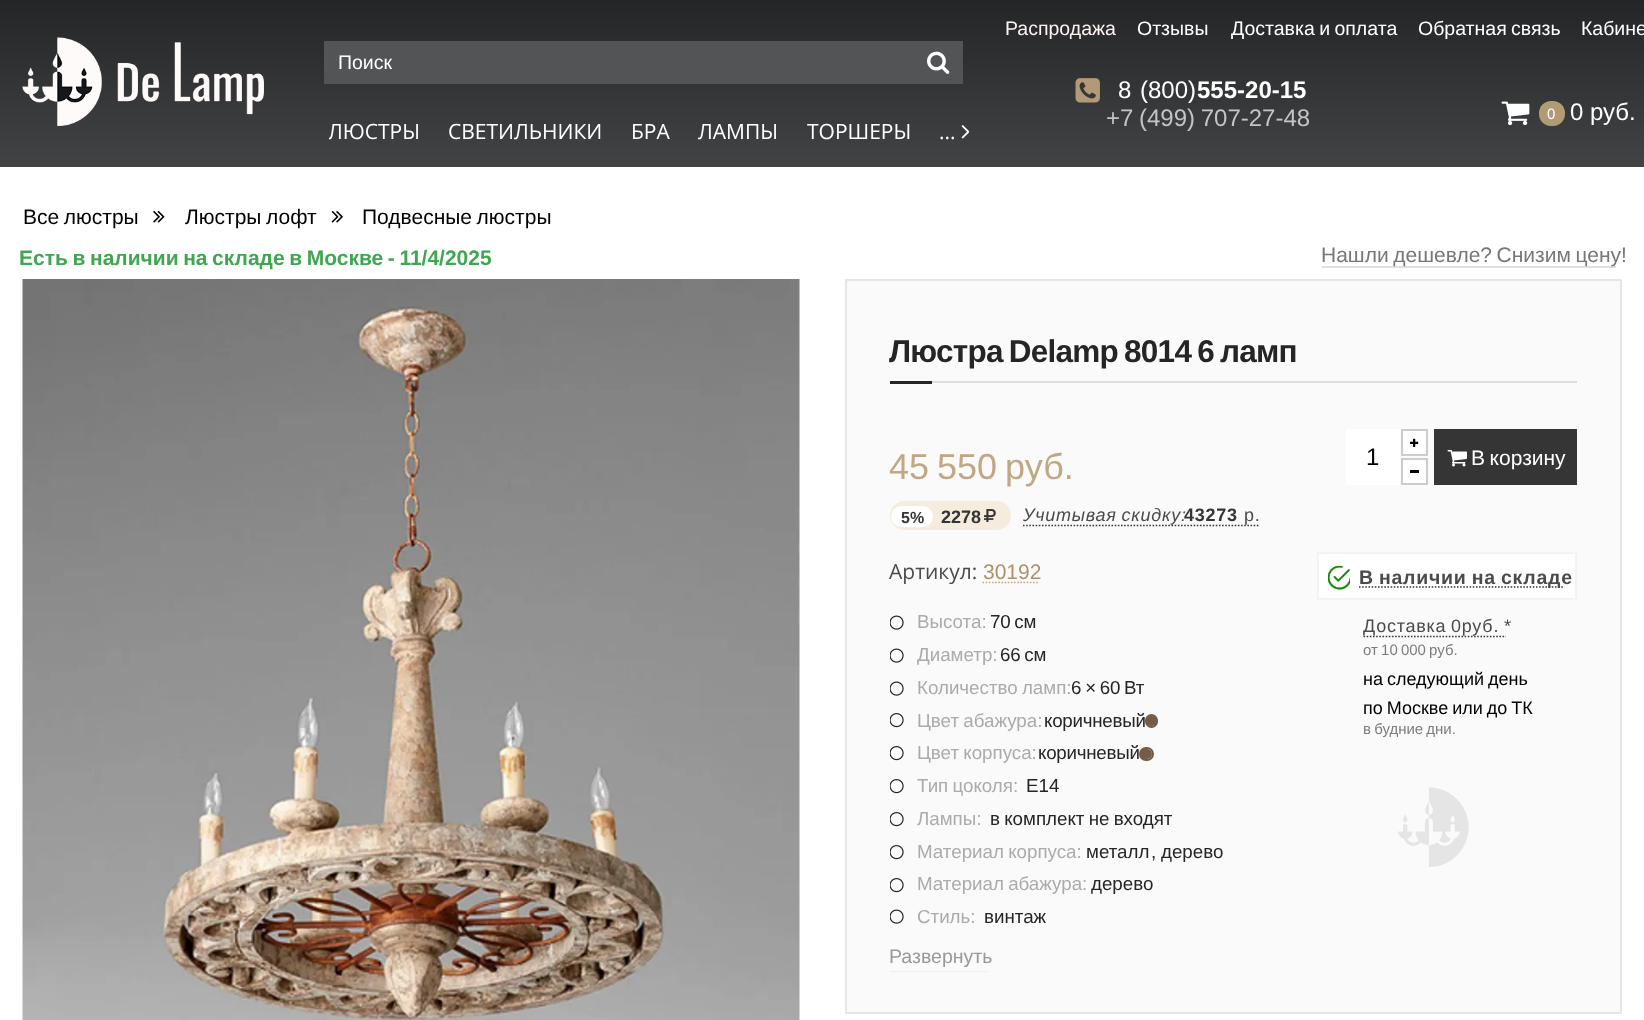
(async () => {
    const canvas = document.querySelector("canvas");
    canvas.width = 1644;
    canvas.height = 1020;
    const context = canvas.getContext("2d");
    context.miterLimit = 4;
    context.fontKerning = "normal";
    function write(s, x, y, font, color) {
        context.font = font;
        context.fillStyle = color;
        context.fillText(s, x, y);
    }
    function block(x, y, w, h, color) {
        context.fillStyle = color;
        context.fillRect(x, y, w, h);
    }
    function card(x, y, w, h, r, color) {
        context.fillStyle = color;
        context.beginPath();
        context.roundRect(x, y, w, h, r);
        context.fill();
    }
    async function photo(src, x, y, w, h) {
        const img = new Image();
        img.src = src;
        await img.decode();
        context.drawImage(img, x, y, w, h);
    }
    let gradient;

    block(0, 0, 1644, 1020, "rgb(255, 255, 255)");
    gradient = context.createLinearGradient(822, 166, 822, 0);
    gradient.addColorStop(0, "rgb(65, 67, 69)");
    gradient.addColorStop(1, "rgb(35, 37, 38)");
    context.fillStyle = gradient;
    context.fillRect(0, 0, 1644, 167);
    await photo("media/1.png", 22, 37, 242, 89);
    write("Распродажа", 1005, 35, "19.5px Liberation Sans", "rgb(255, 242, 242)");
    write("Отзывы", 1137, 35, "19.5px Liberation Sans", "rgb(255, 255, 255)");
    context.wordSpacing = "-1px";
    write("Доставка и оплата", 1231, 35, "19.5px Liberation Sans", "rgb(255, 255, 255)");
    write("Обратная связь", 1418, 35, "19.5px Liberation Sans", "rgb(255, 255, 255)");
    context.wordSpacing = "0px";
    write("Кабине", 1581, 35, "19.5px Liberation Sans", "rgb(255, 255, 255)");
    block(324, 41, 639, 43, "rgb(83, 84, 86)");
    write("Поиск", 338, 69, "19.5px Liberation Sans", "rgb(255, 255, 255)");
    await photo("media/2.png", 927, 51, 23, 23);
    await photo("media/3.png", 1075, 78, 25, 25);
    context.wordSpacing = "2px";
    write("8 (800)", 1118, 98, "24px Liberation Sans", "rgb(255, 255, 255)");
    context.wordSpacing = "0px";
    write("555-20-15", 1197, 98, "bold 24px Liberation Sans", "rgb(255, 255, 255)");
    context.wordSpacing = "-1px";
    write("+7 (499) 707-27-48", 1106, 126, "24px Liberation Sans", "rgb(195, 196, 196)");
    await photo("media/4.png", 1501, 101, 29, 25);
    card(1539, 101, 26, 25, 12, "rgb(179, 154, 119)");
    context.wordSpacing = "0px";
    write("0", 1547, 119, "15px Liberation Sans", "rgb(255, 255, 255)");
    write("0 руб.", 1570, 120, "24px Liberation Sans", "rgb(255, 255, 255)");
    context.save();
    context.beginPath();
    context.rect(329, 117, 90, 29);
    context.clip();
    write("ЛЮСТРЫ", 328, 139, "21px Open Sans", "rgb(255, 255, 255)");
    context.restore();
    write("СВЕТИЛЬНИКИ", 448, 139, "21px Open Sans", "rgb(255, 255, 255)");
    write("БРА", 631, 139, "21px Open Sans", "rgb(255, 255, 255)");
    write("ЛАМПЫ", 698, 139, "21px Open Sans", "rgb(255, 255, 255)");
    write("ТОРШЕРЫ", 807, 139, "21px Open Sans", "rgb(255, 255, 255)");
    write("...", 939, 139, "21px Open Sans", "rgb(255, 255, 255)");
    await photo("media/5.png", 961, 125, 8, 14);
    context.wordSpacing = "-1.25px";
    write("Все люстры", 23, 224, "21px Liberation Sans", "rgb(0, 0, 0)");
    await photo("media/6.png", 153, 211, 12, 12);
    write("Люстры лофт", 185, 224, "21px Liberation Sans", "rgb(0, 0, 0)");
    await photo("media/7.png", 331, 211, 12, 12);
    write("Подвесные люстры", 362, 224, "21px Liberation Sans", "rgb(0, 0, 0)");
    write("Есть в наличии на складе в Москве - 11/4/2025", 19, 265, "bold 21px Liberation Sans", "rgb(64, 166, 81)");
    await photo("media/8.png", 22, 279, 778, 741);
    block(1322, 266, 294, 2, "rgb(224, 224, 224)");
    write("Нашли дешевле? Снизим цену!", 1321, 262, "21px Liberation Sans", "rgb(122, 118, 118)");
    context.fillStyle = "rgb(250, 250, 250)";
    context.beginPath();
    context.rect(846, 280, 775, 733);
    context.fill();
    context.strokeStyle = "rgb(230, 230, 230)";
    context.lineWidth = 2;
    context.stroke();
    context.letterSpacing = "-0.75px";
    context.wordSpacing = "-2px";
    write("Люстра Delamp 8014 6 ламп", 889, 362, "bold 31.5px Liberation Sans", "rgb(37, 37, 37)");
    block(932, 381, 645, 2, "rgb(221, 221, 221)");
    block(890, 381, 42, 3, "rgb(37, 37, 37)");
    context.letterSpacing = "0px";
    write("45 550 руб.", 889, 479, "36px Liberation Sans", "rgb(192, 168, 132)");
    card(890, 501, 121, 29, 14.5, "rgb(245, 236, 222)");
    card(891, 506, 42, 21, 10.5, "rgb(255, 255, 255)");
    context.wordSpacing = "0px";
    write("5%", 901, 523, "bold 16px Liberation Sans", "rgb(53, 53, 53)");
    write("2278", 941, 523, "bold 18px Liberation Sans", "rgb(53, 53, 53)");
    await photo("media/9.png", 984, 509, 12, 13);
    context.beginPath();
    context.moveTo(1023, 525.5);
    context.lineTo(1260, 525.5);
    context.strokeStyle = "rgb(53, 53, 53)";
    context.lineWidth = 1.6;
    context.setLineDash([1.58, 1.58]);
    context.stroke();
    context.letterSpacing = "0.75px";
    context.wordSpacing = "-1px";
    write("Учитывая скидку:", 1023, 521, "italic 18px Liberation Sans", "rgb(75, 75, 75)");
    context.wordSpacing = "0px";
    write("43273", 1184, 521, "bold 18px Liberation Sans", "rgb(53, 53, 53)");
    write("р.", 1244, 521, "18px Liberation Sans", "rgb(75, 75, 75)");
    block(1346, 429, 54, 56, "rgb(255, 255, 255)");
    context.letterSpacing = "0px";
    write("1", 1366, 465, "24px Liberation Sans", "rgb(0, 0, 0)");
    context.fillStyle = "rgb(254, 254, 254)";
    context.beginPath();
    context.rect(1402, 430, 25, 25);
    context.fill();
    context.strokeStyle = "rgb(204, 204, 204)";
    context.lineWidth = 2;
    context.setLineDash([]);
    context.stroke();
    await photo("media/10.png", 1410, 438, 9, 9);
    context.beginPath();
    context.rect(1402, 459, 25, 25);
    context.fill();
    context.stroke();
    block(1410, 470, 9, 3, "rgb(0, 0, 0)");
    block(1434, 429, 143, 56, "rgb(53, 53, 53)");
    await photo("media/11.png", 1447, 450, 20, 17);
    context.wordSpacing = "-1.25px";
    write("В корзину", 1471, 465, "21px Liberation Sans", "rgb(255, 255, 255)");
    context.wordSpacing = "0px";
    write("Артикул:", 889, 579, "21px Open Sans", "rgb(75, 75, 75)");
    write("30192", 983, 579, "21px Liberation Sans", "rgb(170, 146, 109)");
    context.beginPath();
    context.moveTo(982.5, 582.5);
    context.lineTo(1038, 582.5);
    context.strokeStyle = "rgb(192, 168, 132)";
    context.lineWidth = 1.6;
    context.setLineDash([1.58, 1.58]);
    context.stroke();
    context.fillStyle = "rgb(255, 255, 255)";
    context.beginPath();
    context.rect(1318, 553, 258, 46);
    context.fill();
    context.strokeStyle = "rgb(243, 243, 243)";
    context.lineWidth = 2;
    context.setLineDash([]);
    context.stroke();
    await photo("media/12.png", 1328, 566, 22, 24);
    context.beginPath();
    context.moveTo(1359, 587);
    context.lineTo(1564.5, 587);
    context.strokeStyle = "rgb(53, 53, 53)";
    context.lineWidth = 1.6;
    context.setLineDash([1.58, 1.58]);
    context.stroke();
    context.letterSpacing = "0.75px";
    context.wordSpacing = "-1px";
    write("В наличии на складе", 1359, 584, "bold 19.5px Liberation Sans", "rgb(75, 75, 75)");
    context.beginPath();
    context.moveTo(1363.5, 636.5);
    context.lineTo(1506, 636.5);
    context.stroke();
    write("Доставка 0руб. *", 1363, 632, "18px Liberation Sans", "rgb(75, 75, 75)");
    context.letterSpacing = "0px";
    write("от 10 000 руб.", 1363, 655, "15px Liberation Sans", "rgb(125, 125, 125)");
    write("на следующий день", 1363, 685, "18px Liberation Sans", "rgb(0, 0, 0)");
    write("по Москве или до ТК", 1363, 714, "18px Liberation Sans", "rgb(0, 0, 0)");
    write("в будние дни.", 1363, 734, "15px Liberation Sans", "rgb(125, 125, 125)");
    await photo("media/13.png", 1398, 787, 71, 80);
    await photo("media/14.png", 890, 615, 14, 15);
    context.wordSpacing = "0px";
    write("Высота:", 917, 628, "18.75px Liberation Sans", "rgb(171, 171, 171)");
    context.letterSpacing = "-0.25px";
    context.wordSpacing = "-1px";
    write("70 см", 990, 628, "18.75px Liberation Sans", "rgb(37, 37, 37)");
    await photo("media/14.png", 890, 648, 14, 15);
    context.letterSpacing = "0px";
    context.wordSpacing = "0px";
    write("Диаметр:", 917, 661, "18.75px Liberation Sans", "rgb(171, 171, 171)");
    context.letterSpacing = "-0.25px";
    context.wordSpacing = "-1px";
    write("66 см", 1000, 661, "18.75px Liberation Sans", "rgb(37, 37, 37)");
    await photo("media/14.png", 890, 681, 14, 15);
    context.letterSpacing = "0px";
    write("Количество ламп:", 917, 694, "18.75px Liberation Sans", "rgb(171, 171, 171)");
    context.letterSpacing = "-0.25px";
    write("6 × 60 Вт", 1071, 694, "18.75px Liberation Sans", "rgb(37, 37, 37)");
    await photo("media/15.png", 890, 713, 14, 15);
    context.letterSpacing = "0px";
    write("Цвет абажура:", 917, 727, "18.75px Liberation Sans", "rgb(171, 171, 171)");
    context.letterSpacing = "-0.25px";
    context.wordSpacing = "0px";
    write("коричневый", 1044, 727, "18.75px Liberation Sans", "rgb(37, 37, 37)");
    context.fillStyle = "rgb(117, 92, 72)";
    context.beginPath();
    context.roundRect(1147, 717, 9, 8, 4);
    context.fill();
    context.strokeStyle = "rgb(117, 92, 72)";
    context.lineWidth = 2;
    context.setLineDash([]);
    context.stroke();
    context.beginPath();
    context.roundRect(1146, 715, 11, 12, 5.5);
    context.stroke();
    await photo("media/15.png", 890, 746, 14, 15);
    context.letterSpacing = "0px";
    context.wordSpacing = "-1px";
    write("Цвет корпуса:", 917, 759, "18.75px Liberation Sans", "rgb(171, 171, 171)");
    context.letterSpacing = "-0.25px";
    context.wordSpacing = "0px";
    write("коричневый", 1038, 759, "18.75px Liberation Sans", "rgb(37, 37, 37)");
    context.fillStyle = "rgb(117, 92, 72)";
    context.beginPath();
    context.roundRect(1141, 750, 10, 8, 4);
    context.fill();
    context.stroke();
    context.beginPath();
    context.roundRect(1140, 748, 13, 12, 6);
    context.stroke();
    await photo("media/15.png", 890, 779, 14, 15);
    context.letterSpacing = "0px";
    context.wordSpacing = "-1px";
    write("Тип цоколя:", 917, 792, "18.75px Liberation Sans", "rgb(171, 171, 171)");
    context.wordSpacing = "0px";
    write("E14", 1026, 792, "18.75px Liberation Sans", "rgb(37, 37, 37)");
    await photo("media/15.png", 890, 812, 14, 15);
    write("Лампы:", 917, 825, "18.75px Liberation Sans", "rgb(171, 171, 171)");
    context.wordSpacing = "-1px";
    write("в комплект не входят", 990, 825, "18.75px Liberation Sans", "rgb(37, 37, 37)");
    await photo("media/15.png", 890, 845, 14, 15);
    write("Материал корпуса:", 917, 858, "18.75px Liberation Sans", "rgb(171, 171, 171)");
    context.wordSpacing = "0px";
    write("металл", 1086, 858, "18.75px Liberation Sans", "rgb(37, 37, 37)");
    write(",", 1151, 858, "18.75px Liberation Sans", "rgb(37, 37, 37)");
    write("дерево", 1161, 858, "18.75px Liberation Sans", "rgb(37, 37, 37)");
    await photo("media/15.png", 890, 878, 14, 15);
    context.wordSpacing = "-1px";
    write("Материал абажура:", 917, 890, "18.75px Liberation Sans", "rgb(171, 171, 171)");
    context.wordSpacing = "0px";
    write("дерево", 1091, 890, "18.75px Liberation Sans", "rgb(37, 37, 37)");
    await photo("media/14.png", 890, 909, 14, 15);
    write("Стиль:", 917, 923, "18.75px Liberation Sans", "rgb(171, 171, 171)");
    write("винтаж", 984, 923, "18.75px Liberation Sans", "rgb(37, 37, 37)");
    block(890, 971, 97, 1, "rgb(238, 238, 238)");
    write("Развернуть", 889, 963, "19.5px Liberation Sans", "rgb(153, 153, 153)");
})();
